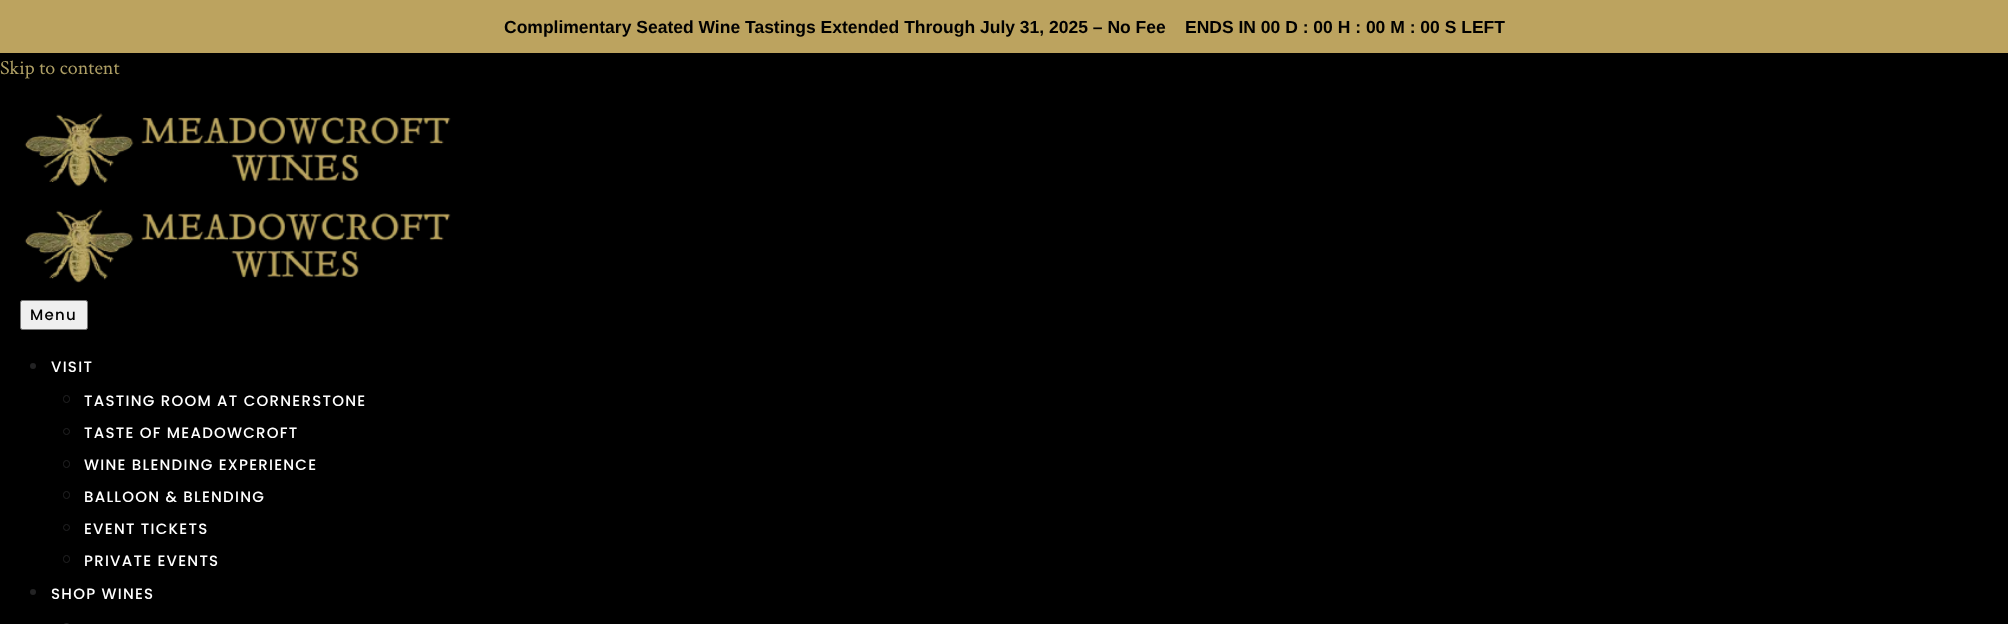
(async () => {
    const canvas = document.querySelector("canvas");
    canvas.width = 2008;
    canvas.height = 624;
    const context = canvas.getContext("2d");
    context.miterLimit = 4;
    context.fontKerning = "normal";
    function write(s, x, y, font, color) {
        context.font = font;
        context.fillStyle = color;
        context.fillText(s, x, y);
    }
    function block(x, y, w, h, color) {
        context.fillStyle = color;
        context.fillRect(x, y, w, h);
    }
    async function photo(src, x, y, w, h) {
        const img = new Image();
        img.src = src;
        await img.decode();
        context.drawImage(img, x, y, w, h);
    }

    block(0, 0, 2008, 624, "rgb(188, 163, 95)");
    write("Complimentary Seated Wine Tastings Extended Through July 31, 2025 – No Fee", 504, 33, "bold 17.5px Liberation Sans", "rgb(0, 0, 0)");
    write("ENDS IN 00 D : 00 H : 00 M : 00 S LEFT", 1185, 33, "bold 17.5px Liberation Sans", "rgb(0, 0, 0)");
    block(0, 53, 2008, 571, "rgb(0, 0, 0)");
    write("Skip to content", 0, 74, "20px Crimson Text", "rgb(174, 159, 101)");
    await photo("media/1.png", 24, 113, 427, 74);
    await photo("media/2.png", 24, 209, 427, 74);
    context.fillStyle = "rgb(239, 239, 239)";
    context.beginPath();
    context.roundRect(20.5, 300.5, 67, 29, 2);
    context.fill();
    context.strokeStyle = "rgb(118, 118, 118)";
    context.stroke();
    context.letterSpacing = "1.25px";
    write("Menu", 30, 320, "500 15px Poppins", "rgb(0, 0, 0)");
    context.fillStyle = "rgb(35, 35, 36)";
    context.beginPath();
    context.arc(33, 366, 3, 0, Math.PI * 2);
    context.fill();
    write("VISIT", 51, 372, "500 15px Poppins", "rgb(255, 255, 255)");
    context.beginPath();
    context.roundRect(63.5, 395.5, 6, 7, 3);
    context.strokeStyle = "rgb(35, 35, 36)";
    context.stroke();
    write("TASTING ROOM AT CORNERSTONE", 84, 406, "500 15px Poppins", "rgb(255, 255, 255)");
    context.beginPath();
    context.arc(66.5, 431.5, 3, 0, Math.PI * 2);
    context.stroke();
    write("TASTE OF MEADOWCROFT", 84, 438, "500 15px Poppins", "rgb(255, 255, 255)");
    context.beginPath();
    context.roundRect(63.5, 460.5, 6, 7, 3);
    context.stroke();
    write("WINE BLENDING EXPERIENCE", 84, 470, "500 15px Poppins", "rgb(255, 255, 255)");
    context.beginPath();
    context.roundRect(63.5, 491.5, 6, 7, 3);
    context.stroke();
    write("BALLOON & BLENDING", 84, 502, "500 15px Poppins", "rgb(255, 255, 255)");
    context.beginPath();
    context.arc(66.5, 527.5, 3, 0, Math.PI * 2);
    context.stroke();
    write("EVENT TICKETS", 84, 534, "500 15px Poppins", "rgb(255, 255, 255)");
    context.beginPath();
    context.roundRect(63.5, 555.5, 6, 7, 3);
    context.stroke();
    write("PRIVATE EVENTS", 84, 566, "500 15px Poppins", "rgb(255, 255, 255)");
    context.fillStyle = "rgb(35, 35, 36)";
    context.beginPath();
    context.arc(33, 592, 3, 0, Math.PI * 2);
    context.fill();
    write("SHOP WINES", 51, 599, "500 15px Poppins", "rgb(255, 255, 255)");
    context.beginPath();
    context.roundRect(63.5, 623.5, 6, 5, 3);
    context.stroke();
})();
